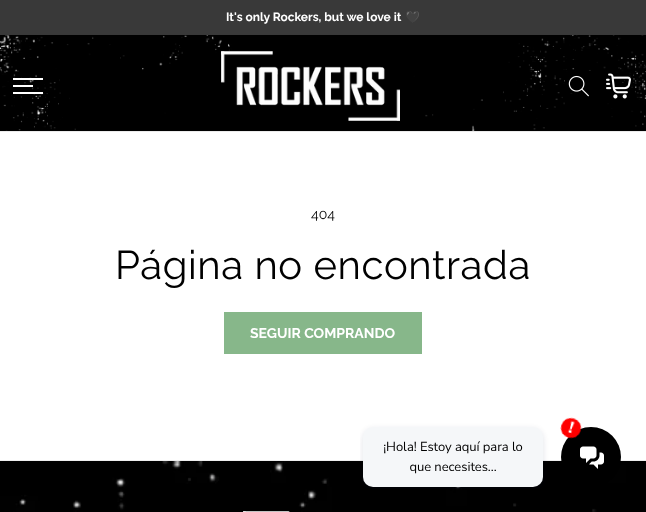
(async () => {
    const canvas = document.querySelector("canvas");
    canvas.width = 646;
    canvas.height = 512;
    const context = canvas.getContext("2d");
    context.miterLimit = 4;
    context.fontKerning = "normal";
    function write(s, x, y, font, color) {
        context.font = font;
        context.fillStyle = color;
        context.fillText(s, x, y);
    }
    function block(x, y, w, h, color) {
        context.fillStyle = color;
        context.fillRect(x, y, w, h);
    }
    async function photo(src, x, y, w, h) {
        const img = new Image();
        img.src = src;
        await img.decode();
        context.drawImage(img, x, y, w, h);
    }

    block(0, 0, 646, 512, "rgb(255, 255, 255)");
    block(0, 34, 646, 1, "rgb(56, 56, 56)");
    block(0, 0, 646, 34, "rgb(57, 57, 57)");
    write("It's only Rockers, but we love it", 226, 21, "bold 12px Raleway", "rgb(255, 255, 255)");
    write("🖤", 405, 21, "bold 12px Noto Color Emoji", "rgb(255, 255, 255)");
    await photo("media/1.png", 0, 35, 646, 96);
    block(0, 131, 646, 1, "rgb(235, 235, 235)");
    block(13, 78, 30, 2, "rgb(255, 255, 255)");
    block(13, 85, 20, 2, "rgb(255, 255, 255)");
    block(13, 92, 30, 2, "rgb(255, 255, 255)");
    await photo("media/2.png", 221, 51, 179, 70);
    await photo("media/3.png", 568, 75, 21, 22);
    await photo("media/4.png", 606, 73, 25, 26);
    write("404", 311, 219, "14px Raleway", "rgb(0, 0, 0)");
    context.letterSpacing = "0.6px";
    write("Página no encontrada", 115, 279, "40px Raleway", "rgb(0, 0, 0)");
    block(224, 312, 198, 42, "rgb(135, 183, 138)");
    context.letterSpacing = "0px";
    write("SEGUIR COMPRANDO", 250, 338, "bold 14px Raleway", "rgb(255, 255, 255)");
    await photo("media/6.png", 0, 461, 646, 51);
    block(0, 460, 646, 1, "rgb(238, 238, 238)");
    await photo("media/5.png", 360, 417, 261, 72);
    await photo("media/7.png", 243, 511, 47, 1);
})();
